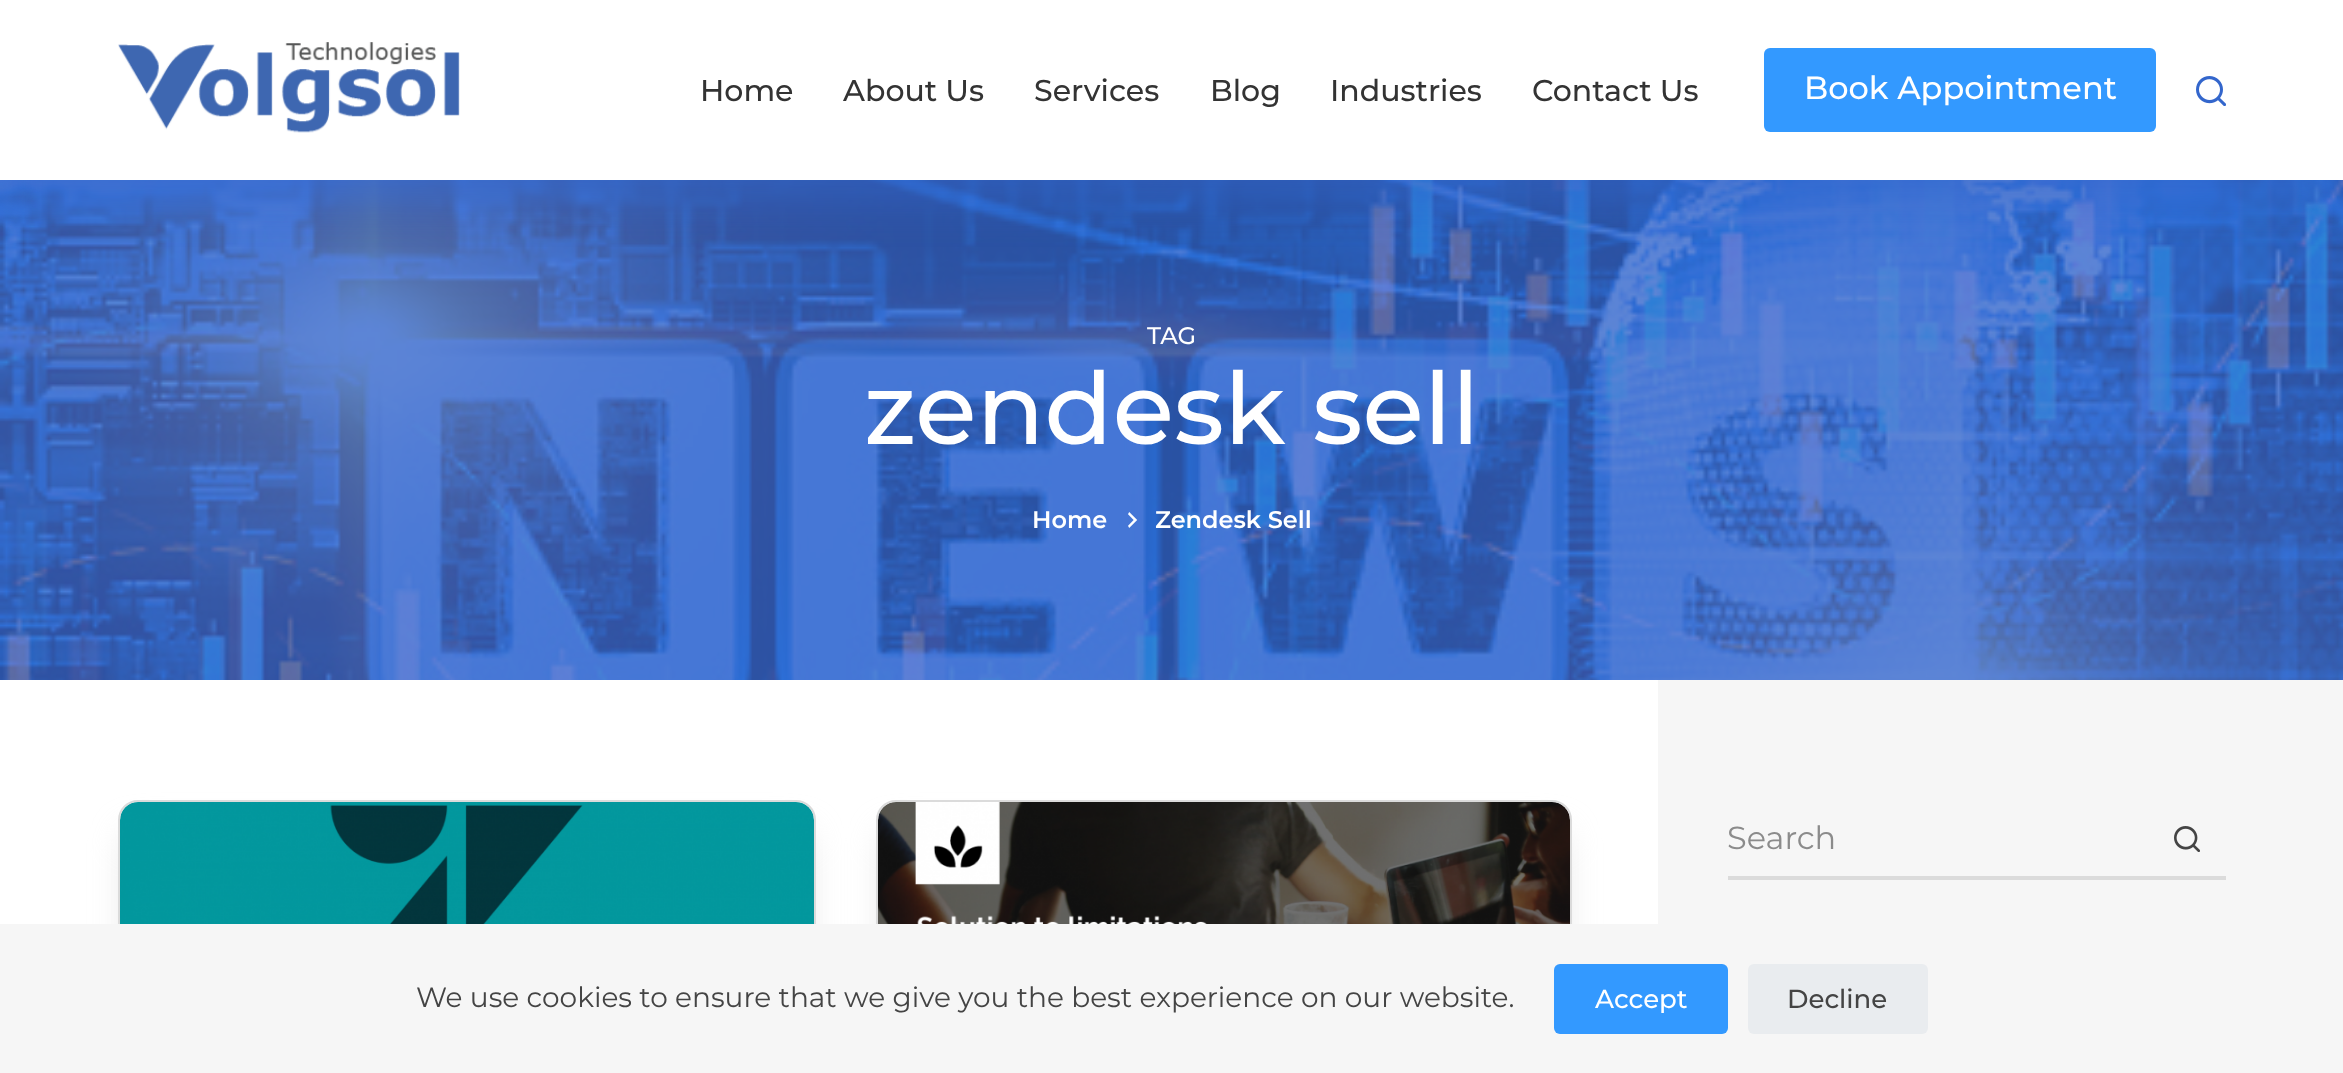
(async () => {
    const canvas = document.querySelector("canvas");
    canvas.width = 2343;
    canvas.height = 1073;
    const context = canvas.getContext("2d");
    context.miterLimit = 4;
    context.fontKerning = "normal";
    function write(s, x, y, font, color) {
        context.font = font;
        context.fillStyle = color;
        context.fillText(s, x, y);
    }
    function block(x, y, w, h, color) {
        context.fillStyle = color;
        context.fillRect(x, y, w, h);
    }
    function card(x, y, w, h, r, color) {
        context.fillStyle = color;
        context.beginPath();
        context.roundRect(x, y, w, h, r);
        context.fill();
    }
    async function photo(src, x, y, w, h) {
        const img = new Image();
        img.src = src;
        await img.decode();
        context.drawImage(img, x, y, w, h);
    }

    block(0, 0, 2343, 1073, "rgb(255, 255, 255)");
    await photo("media/3.png", 0, 180, 2343, 500);
    context.fillStyle = "rgba(51, 102, 204, 0.5)";
    context.filter = "blur(20px)";
    context.beginPath();
    context.rect(0, 20, 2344, 180);
    context.fill();
    context.filter = "none";
    block(0, 0, 2343, 180, "rgb(255, 255, 255)");
    await photo("media/1.png", 118, 42, 342, 91);
    write("Home", 700, 101, "500 30px Montserrat", "rgb(51, 51, 51)");
    write("About Us", 843, 101, "500 30px Montserrat", "rgb(51, 51, 51)");
    write("Services", 1034, 101, "500 30px Montserrat", "rgb(51, 51, 51)");
    write("Blog", 1210, 101, "500 30px Montserrat", "rgb(51, 51, 51)");
    write("Industries", 1330, 101, "500 30px Montserrat", "rgb(51, 51, 51)");
    write("Contact Us", 1532, 101, "500 30px Montserrat", "rgb(51, 51, 51)");
    card(1764, 48, 392, 84, 6, "rgb(51, 153, 255)");
    write("Book Appointment", 1804, 99, "500 32px Montserrat", "rgb(255, 255, 255)");
    await photo("media/2.png", 2196, 76, 30, 30);
    write("TAG", 1147, 344, "500 24px Montserrat", "rgb(255, 255, 255)");
    write("zendesk sell", 864, 444, "500 100px Montserrat", "rgb(255, 255, 255)");
    write("Home", 1032, 528, "600 24px Montserrat", "rgb(255, 255, 255)");
    await photo("media/4.png", 1128, 512, 10, 16);
    write("Zendesk Sell", 1155, 528, "600 24px Montserrat", "rgb(255, 255, 255)");
    context.fillStyle = "rgb(219, 219, 219)";
    context.filter = "blur(18px)";
    context.beginPath();
    context.roundRect(130, 836, 674, 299, 8);
    context.fill();
    context.filter = "none";
    context.fillStyle = "rgb(246, 246, 246)";
    context.beginPath();
    context.roundRect(119, 801, 696, 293, 19);
    context.fill();
    context.strokeStyle = "rgb(219, 219, 219)";
    context.lineWidth = 2;
    context.stroke();
    await photo("media/5.png", 120, 802, 694, 122);
    context.fillStyle = "rgb(219, 219, 219)";
    context.filter = "blur(18px)";
    context.beginPath();
    context.roundRect(888, 836, 672, 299, 8);
    context.fill();
    context.filter = "none";
    context.fillStyle = "rgb(246, 246, 246)";
    context.beginPath();
    context.roundRect(877, 801, 694, 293, 19);
    context.fill();
    context.stroke();
    await photo("media/6.png", 878, 802, 692, 122);
    block(1658, 680, 685, 244, "rgb(246, 246, 246)");
    block(1728, 876, 498, 4, "rgb(219, 219, 219)");
    write("Search", 1727, 849, "32px Montserrat", "rgb(139, 139, 139)");
    await photo("media/7.png", 2174, 826, 26, 26);
    block(0, 924, 2343, 149, "rgb(246, 246, 246)");
    write("We use cookies to ensure that we give you the best experience on our website.", 416, 1007, "28px Montserrat", "rgb(68, 68, 68)");
    card(1554, 964, 174, 70, 6, "rgb(51, 153, 255)");
    write("Accept", 1595, 1008, "500 26px Montserrat", "rgb(255, 255, 255)");
    card(1748, 964, 180, 70, 6, "rgb(233, 236, 239)");
    write("Decline", 1787, 1008, "500 26px Montserrat", "rgb(68, 68, 68)");
})();
